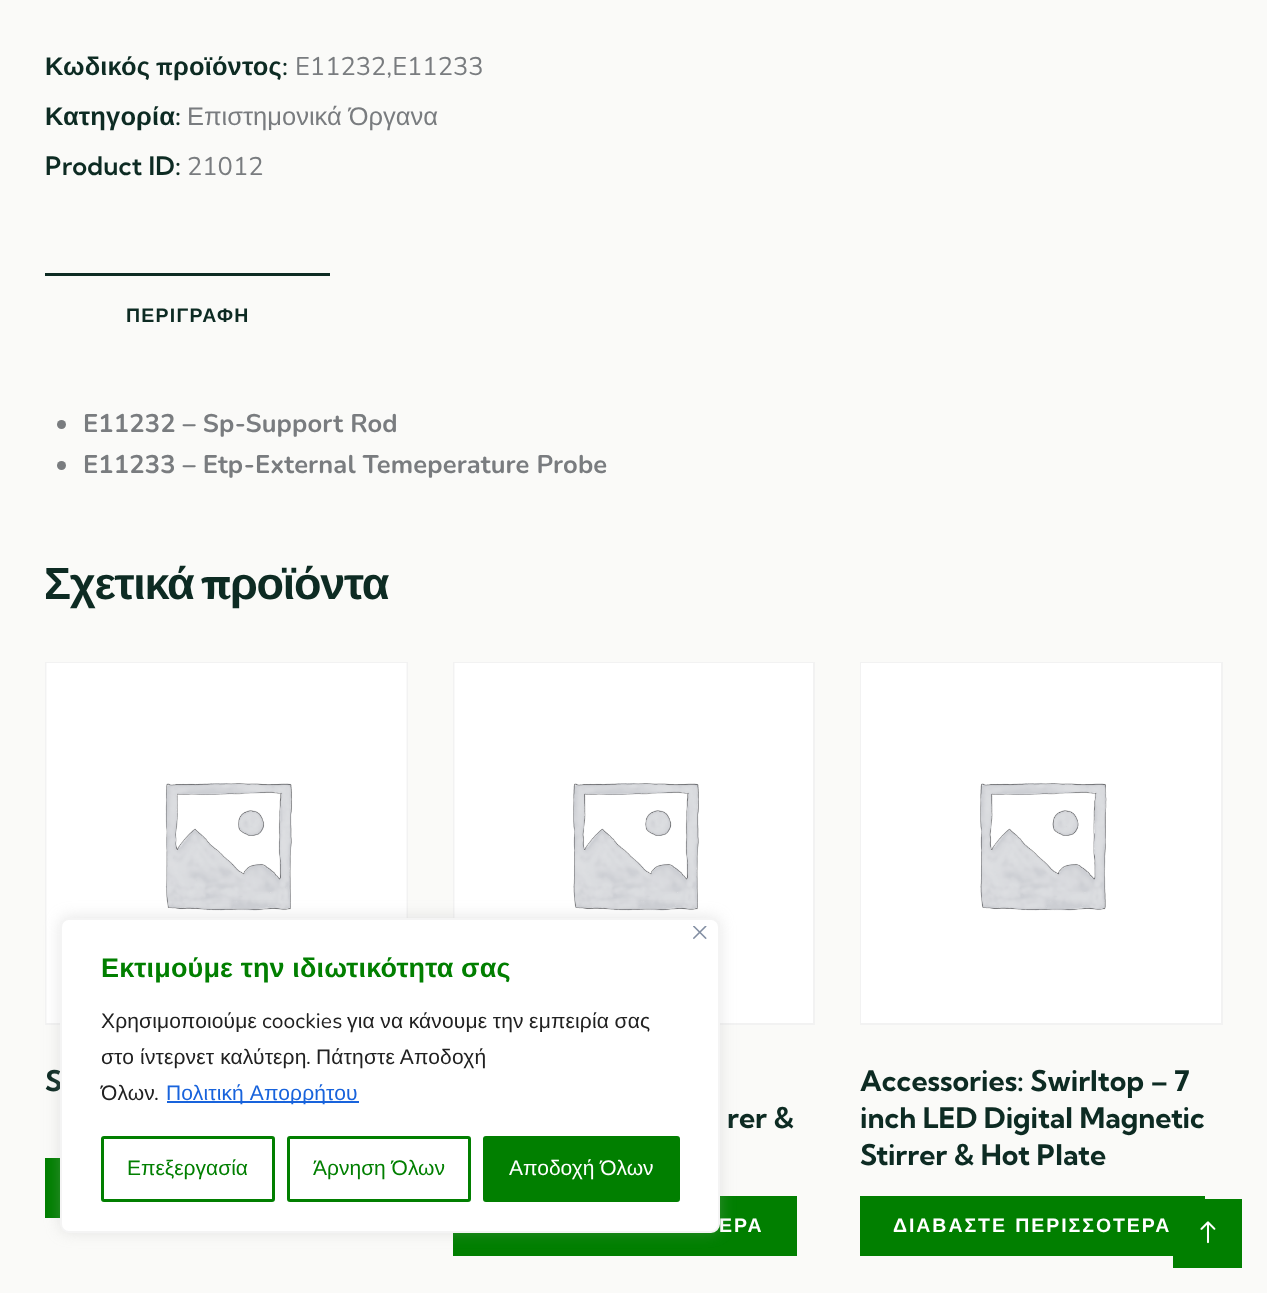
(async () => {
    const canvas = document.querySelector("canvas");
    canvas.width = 1267;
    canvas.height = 1293;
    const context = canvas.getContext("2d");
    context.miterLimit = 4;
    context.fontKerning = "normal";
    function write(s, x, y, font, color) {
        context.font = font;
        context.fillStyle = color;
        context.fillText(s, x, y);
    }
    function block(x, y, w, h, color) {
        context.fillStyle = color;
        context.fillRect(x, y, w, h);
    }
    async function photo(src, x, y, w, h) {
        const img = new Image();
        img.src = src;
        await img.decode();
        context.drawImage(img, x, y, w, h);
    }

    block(0, 0, 1267, 1293, "rgb(250, 250, 248)");
    context.letterSpacing = "0.15px";
    write("Κωδικός", 45, 75, "bold 25.5px Liberation Sans", "rgb(13, 43, 35)");
    write("π", 156, 75, "600 25.5px Kumbh Sans", "rgb(13, 43, 35)");
    write("ροϊόντος", 173, 75, "bold 25.5px Liberation Sans", "rgb(13, 43, 35)");
    write(":", 282, 75, "600 25.5px Kumbh Sans", "rgb(13, 43, 35)");
    context.letterSpacing = "0px";
    write("E11232,E11233", 295, 75, "25.5px Nunito", "rgb(121, 124, 127)");
    context.letterSpacing = "0.15px";
    write("Κατηγορία", 45, 125, "bold 25.5px Liberation Sans", "rgb(13, 43, 35)");
    write(":", 175, 125, "600 25.5px Kumbh Sans", "rgb(13, 43, 35)");
    context.letterSpacing = "0px";
    write("Επιστημονικά Όργανα", 187, 125, "25.5px Liberation Sans", "rgb(121, 124, 127)");
    context.letterSpacing = "0.15px";
    write("Product ID:", 45, 175, "600 25.5px Kumbh Sans", "rgb(13, 43, 35)");
    context.letterSpacing = "0px";
    write("21012", 187, 175, "25.5px Nunito", "rgb(121, 124, 127)");
    block(45, 273, 285, 3, "rgb(13, 43, 35)");
    context.letterSpacing = "1.25px";
    write("ΠΕΡΙΓΡΑΦΗ", 126, 322, "bold 19.5px Liberation Sans", "rgb(13, 43, 35)");
    context.fillStyle = "rgb(121, 124, 127)";
    context.beginPath();
    context.arc(61.5, 424.5, 4.5, 0, Math.PI * 2);
    context.fill();
    context.letterSpacing = "0.15px";
    write("E11232 – Sp-Support Rod", 83, 432, "bold 25.5px Nunito", "rgb(121, 124, 127)");
    context.beginPath();
    context.arc(61.5, 465.5, 4.5, 0, Math.PI * 2);
    context.fill();
    write("E11233 – Etp-External Temeperature Probe", 83, 473, "bold 25.5px Nunito", "rgb(121, 124, 127)");
    context.letterSpacing = "-1.25px";
    write("Σχετικά", 44, 599, "bold 45px Liberation Sans", "rgb(13, 43, 35)");
    write("π", 201, 599, "bold 45px Kumbh Sans", "rgb(13, 43, 35)");
    write("ροϊόντα", 230, 599, "bold 45px Liberation Sans", "rgb(13, 43, 35)");
    context.strokeStyle = "rgb(242, 242, 242)";
    context.lineWidth = 2;
    context.strokeRect(46, 663, 361, 361);
    await photo("media/1.png", 46, 663, 361, 360);
    context.letterSpacing = "0px";
    write("S", 45, 1091, "bold 28.5px Kumbh Sans", "rgb(13, 43, 35)");
    block(45, 1158, 15, 60, "rgb(1, 127, 0)");
    context.strokeRect(454, 663, 360, 361);
    await photo("media/2.png", 454, 663, 359, 360);
    write("rer &", 727, 1128, "bold 28.5px Kumbh Sans", "rgb(13, 43, 35)");
    block(453, 1196, 344, 60, "rgb(1, 127, 0)");
    context.letterSpacing = "1.95px";
    context.wordSpacing = "1px";
    write("ΕΡΑ", 719, 1232, "bold 19.5px Liberation Sans", "rgb(255, 255, 255)");
    context.strokeRect(861, 663, 361, 361);
    await photo("media/3.png", 861, 663, 360, 360);
    context.letterSpacing = "0px";
    context.wordSpacing = "0px";
    write("Accessories: Swirltop – 7", 860, 1091, "bold 28.5px Kumbh Sans", "rgb(13, 43, 35)");
    write("inch LED Digital Magnetic", 860, 1128, "bold 28.5px Kumbh Sans", "rgb(13, 43, 35)");
    write("Stirrer & Hot Plate", 860, 1165, "bold 28.5px Kumbh Sans", "rgb(13, 43, 35)");
    block(860, 1196, 345, 60, "rgb(1, 127, 0)");
    context.letterSpacing = "1.95px";
    context.wordSpacing = "1px";
    write("ΔΙΑΒΑΣΤΕ ΠΕΡΙΣΣΟΤΕΡΑ", 893, 1232, "bold 19.5px Liberation Sans", "rgb(255, 255, 255)");
    context.fillStyle = "rgba(172, 171, 171, 0.3)";
    context.filter = "blur(7.5px)";
    context.beginPath();
    context.roundRect(60, 917, 660, 315, 9);
    context.fill();
    context.filter = "none";
    context.fillStyle = "rgb(255, 255, 255)";
    context.beginPath();
    context.roundRect(61, 919, 658, 313, 8);
    context.fill();
    context.strokeStyle = "rgb(244, 244, 244)";
    context.stroke();
    await photo("media/4.png", 693, 926, 14, 13);
    context.letterSpacing = "0.15px";
    context.wordSpacing = "0px";
    write("Εκτιμούμε την ιδιωτικότητα σας", 101, 977, "bold 27px Liberation Sans", "rgb(1, 127, 0)");
    write("Χρησιμοποιούμε", 101, 1028, "21px Liberation Sans", "rgb(33, 33, 33)");
    write("coockies", 262, 1028, "21px Nunito", "rgb(33, 33, 33)");
    context.wordSpacing = "-0.5px";
    write("για να κάνουμε την εμπειρία σας", 347, 1028, "21px Liberation Sans", "rgb(33, 33, 33)");
    context.wordSpacing = "0px";
    write("στο ίντερνετ καλύτερη", 101, 1064, "21px Liberation Sans", "rgb(33, 33, 33)");
    write(".", 306, 1064, "21px Nunito", "rgb(33, 33, 33)");
    write("Πάτηστε Αποδοχή", 316, 1064, "21px Liberation Sans", "rgb(33, 33, 33)");
    write("Όλων", 101, 1100, "21px Liberation Sans", "rgb(33, 33, 33)");
    write(".", 154, 1100, "21px Nunito", "rgb(33, 33, 33)");
    block(167, 1101, 192, 2, "rgb(24, 99, 220)");
    context.wordSpacing = "1px";
    write("Πολιτική Απορρήτου", 166, 1100, "21px Liberation Sans", "rgb(24, 99, 220)");
    context.beginPath();
    context.roundRect(102.5, 1137.5, 171, 63, 1.5);
    context.strokeStyle = "rgb(1, 127, 0)";
    context.lineWidth = 3;
    context.stroke();
    context.letterSpacing = "0px";
    context.wordSpacing = "0px";
    write("Επεξεργασία", 127, 1175, "21px Liberation Sans", "rgb(1, 127, 0)");
    context.beginPath();
    context.roundRect(288.5, 1137.5, 181, 63, 1.5);
    context.stroke();
    write("Άρνηση Όλων", 313, 1175, "21px Liberation Sans", "rgb(1, 127, 0)");
    context.beginPath();
    context.roundRect(484.5, 1137.5, 194, 63, 1.5);
    context.fill();
    context.stroke();
    write("Αποδοχή Όλων", 509, 1175, "21px Liberation Sans", "rgb(255, 255, 255)");
    block(1173, 1199, 69, 69, "rgb(1, 127, 0)");
    await photo("media/5.png", 1200, 1221, 16, 23);
})();
